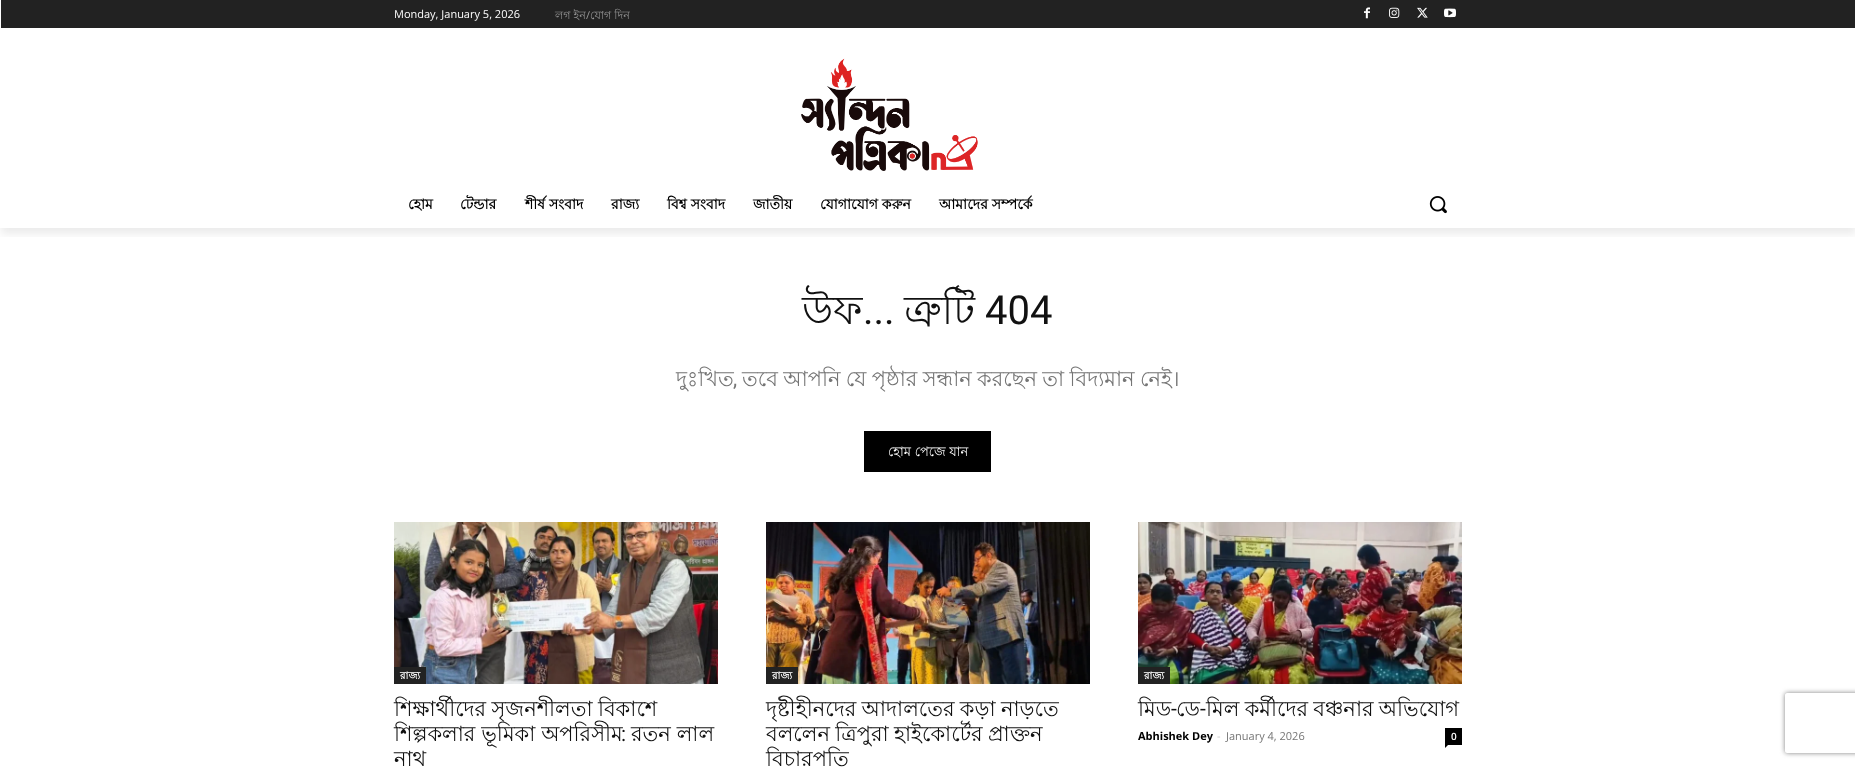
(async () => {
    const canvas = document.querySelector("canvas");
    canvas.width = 1855;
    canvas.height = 767;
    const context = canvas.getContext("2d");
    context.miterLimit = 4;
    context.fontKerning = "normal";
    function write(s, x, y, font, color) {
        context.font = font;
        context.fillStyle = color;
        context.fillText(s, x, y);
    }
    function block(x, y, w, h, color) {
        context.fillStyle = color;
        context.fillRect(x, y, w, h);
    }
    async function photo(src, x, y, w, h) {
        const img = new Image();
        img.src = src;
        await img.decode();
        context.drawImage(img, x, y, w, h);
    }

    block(0, 0, 1855, 767, "rgb(255, 255, 255)");
    block(1, 0, 1854, 28, "rgb(34, 34, 34)");
    await photo("media/1.png", 1364, 7, 6, 12);
    await photo("media/2.png", 1389, 7, 11, 11);
    await photo("media/3.png", 1417, 7, 11, 11);
    await photo("media/4.png", 1444, 8, 12, 10);
    await photo("media/5.png", 801, 58, 177, 113);
    context.save();
    context.beginPath();
    context.rect(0, 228, 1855, 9);
    context.clip();
    context.fillStyle = "rgba(0, 0, 0, 0.08)";
    context.filter = "blur(4px)";
    context.beginPath();
    context.rect(1, 6, 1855, 228);
    context.fill();
    context.filter = "none";
    context.restore();
    write("Monday, January 5, 2026", 394, 18, "11px Open Sans", "rgb(255, 255, 255)");
    write("লগ ইন", 555, 19, "11px Lohit Bengali", "rgb(153, 153, 153)");
    write("/", 586, 19, "11px Open Sans", "rgb(153, 153, 153)");
    write("যোগ দিন", 590, 19, "11px Lohit Bengali", "rgb(153, 153, 153)");
    write("হোম", 408, 209, "bold 14px Lohit Bengali", "rgb(0, 0, 0)");
    write("টেন্ডার", 460, 209, "bold 14px Lohit Bengali", "rgb(0, 0, 0)");
    write("শীর্ষ সংবাদ", 525, 209, "bold 14px Lohit Bengali", "rgb(0, 0, 0)");
    write("রাজ্য", 611, 209, "bold 14px Lohit Bengali", "rgb(0, 0, 0)");
    write("বিশ্ব সংবাদ", 667, 209, "bold 14px Lohit Bengali", "rgb(0, 0, 0)");
    write("জাতীয়", 753, 209, "bold 14px Lohit Bengali", "rgb(0, 0, 0)");
    write("যোগাযোগ করুন", 820, 209, "bold 14px Lohit Bengali", "rgb(0, 0, 0)");
    write("আমাদের সম্পর্কে", 939, 209, "bold 14px Lohit Bengali", "rgb(0, 0, 0)");
    await photo("media/6.png", 1429, 196, 18, 18);
    write("উফ", 802, 324, "40px Lohit Bengali", "rgb(17, 17, 17)");
    write("...", 863, 324, "40px Roboto", "rgb(17, 17, 17)");
    write("ত্রুটি", 904, 324, "40px Lohit Bengali", "rgb(17, 17, 17)");
    write("404", 985, 324, "40px Roboto", "rgb(17, 17, 17)");
    write("দুঃখিত", 676, 386, "21px Lohit Bengali", "rgb(117, 117, 117)");
    write(",", 733, 386, "21px Roboto", "rgb(117, 117, 117)");
    context.wordSpacing = "-0.5px";
    write("তবে আপনি যে পৃষ্ঠার সন্ধান করছেন তা বিদ্যমান নেই।", 742, 386, "21px Lohit Bengali", "rgb(117, 117, 117)");
    block(864, 431, 127, 41, "rgb(0, 0, 0)");
    context.wordSpacing = "0px";
    write("হোম পেজে যান", 888, 456, "13px Lohit Bengali", "rgb(255, 255, 255)");
    await photo("media/7.png", 394, 522, 324, 162);
    block(394, 667, 32, 17, "rgb(34, 34, 34)");
    write("রাজ্য", 400, 679, "bold 10px Lohit Bengali", "rgb(255, 255, 255)");
    context.wordSpacing = "-0.5px";
    write("শিক্ষার্থীদের সৃজনশীলতা বিকাশে", 394, 716, "21px Lohit Bengali", "rgb(17, 17, 17)");
    context.wordSpacing = "0px";
    write("শিল্পকলার ভূমিকা অপরিসীম", 394, 741, "21px Lohit Bengali", "rgb(17, 17, 17)");
    write(":", 621, 741, "21px Roboto", "rgb(17, 17, 17)");
    write("রতন লাল", 631, 741, "21px Lohit Bengali", "rgb(17, 17, 17)");
    write("নাথ", 394, 766, "21px Lohit Bengali", "rgb(17, 17, 17)");
    await photo("media/8.png", 766, 522, 324, 162);
    block(766, 667, 32, 17, "rgb(34, 34, 34)");
    write("রাজ্য", 772, 679, "bold 10px Lohit Bengali", "rgb(255, 255, 255)");
    context.wordSpacing = "-0.5px";
    write("দৃষ্টীহীনদের আদালতের কড়া নাড়তে", 766, 716, "21px Lohit Bengali", "rgb(17, 17, 17)");
    write("বললেন ত্রিপুরা হাইকোর্টের প্রাক্তন", 766, 741, "21px Lohit Bengali", "rgb(17, 17, 17)");
    context.wordSpacing = "0px";
    write("বিচারপতি", 766, 766, "21px Lohit Bengali", "rgb(17, 17, 17)");
    await photo("media/9.png", 1138, 522, 324, 162);
    block(1138, 667, 32, 17, "rgb(34, 34, 34)");
    write("রাজ্য", 1144, 679, "bold 10px Lohit Bengali", "rgb(255, 255, 255)");
    write("মিড", 1138, 716, "21px Lohit Bengali", "rgb(17, 17, 17)");
    write("-", 1171, 716, "21px Roboto", "rgb(17, 17, 17)");
    write("ডে", 1176, 716, "21px Lohit Bengali", "rgb(17, 17, 17)");
    write("-", 1200, 716, "21px Roboto", "rgb(17, 17, 17)");
    context.wordSpacing = "-0.5px";
    write("মিল কর্মীদের বঞ্চনার অভিযোগ", 1206, 716, "21px Lohit Bengali", "rgb(17, 17, 17)");
    context.wordSpacing = "0px";
    write("Abhishek Dey", 1138, 740, "bold 11px Open Sans", "rgb(0, 0, 0)");
    write("-", 1217, 740, "11px Open Sans", "rgb(204, 204, 204)");
    write("January 4, 2026", 1226, 740, "11px Open Sans", "rgb(117, 117, 117)");
    block(1445, 728, 17, 17, "rgb(0, 0, 0)");
    write("0", 1451, 740, "600 10px Open Sans", "rgb(255, 255, 255)");
    context.fillStyle = "rgb(0, 0, 0)";
    context.beginPath();
    context.moveTo(1445, 745);
    context.lineTo(1448, 745);
    context.lineTo(1445, 748);
    context.closePath();
    context.fill();
    context.save();
    context.beginPath();
    context.moveTo(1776, 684);
    context.lineTo(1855, 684);
    context.lineTo(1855, 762);
    context.lineTo(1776, 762);
    context.closePath();
    context.moveTo(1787, 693);
    context.lineTo(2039, 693);
    context.bezierCurveTo(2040, 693, 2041, 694, 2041, 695);
    context.lineTo(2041, 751);
    context.bezierCurveTo(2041, 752, 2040, 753, 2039, 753);
    context.lineTo(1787, 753);
    context.bezierCurveTo(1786, 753, 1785, 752, 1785, 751);
    context.lineTo(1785, 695);
    context.bezierCurveTo(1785, 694, 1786, 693, 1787, 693);
    context.closePath();
    context.clip("evenodd");
    context.fillStyle = "rgb(128, 128, 128)";
    context.filter = "blur(2.5px)";
    context.beginPath();
    context.roundRect(1785, 693, 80, 60, 2);
    context.fill();
    context.filter = "none";
    context.restore();
})();
